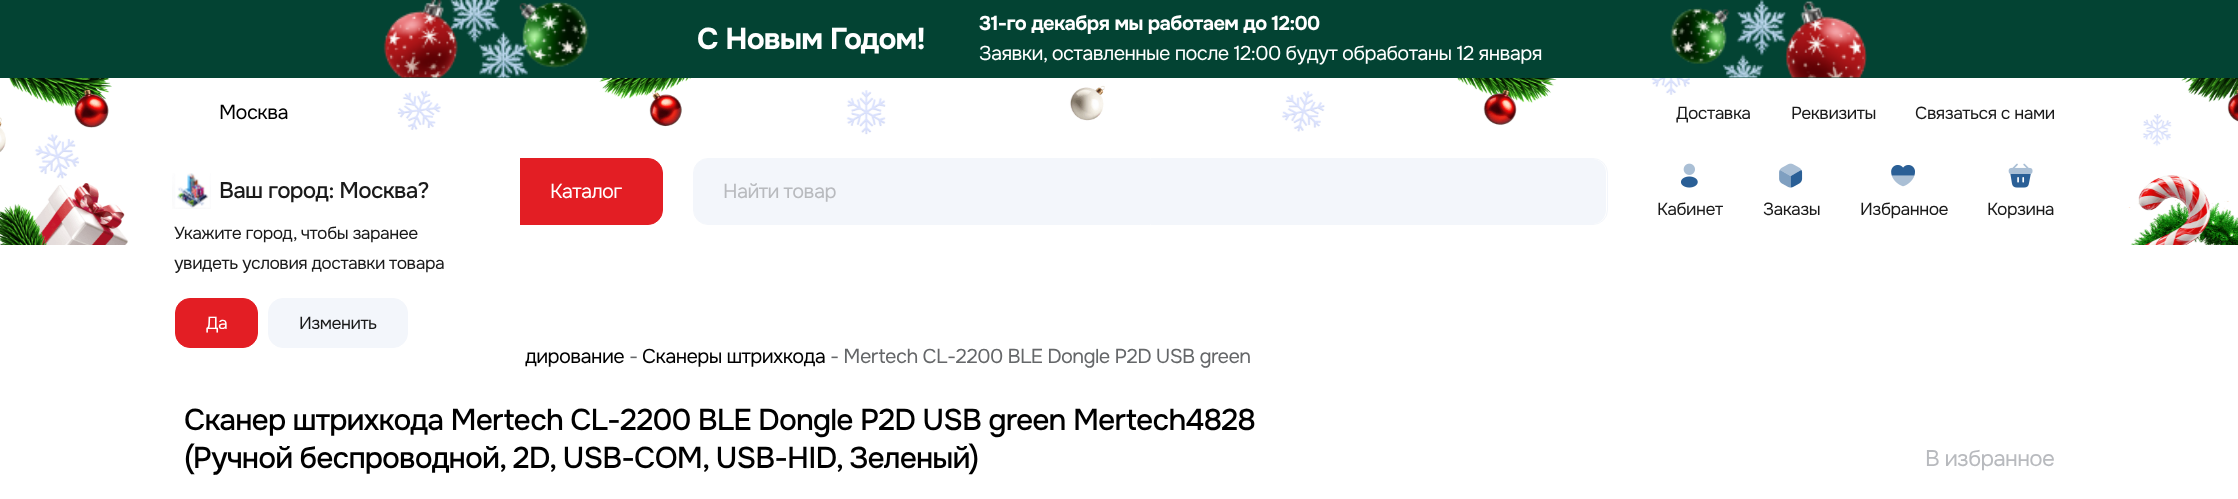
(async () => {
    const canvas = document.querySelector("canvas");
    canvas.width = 2238;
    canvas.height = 499;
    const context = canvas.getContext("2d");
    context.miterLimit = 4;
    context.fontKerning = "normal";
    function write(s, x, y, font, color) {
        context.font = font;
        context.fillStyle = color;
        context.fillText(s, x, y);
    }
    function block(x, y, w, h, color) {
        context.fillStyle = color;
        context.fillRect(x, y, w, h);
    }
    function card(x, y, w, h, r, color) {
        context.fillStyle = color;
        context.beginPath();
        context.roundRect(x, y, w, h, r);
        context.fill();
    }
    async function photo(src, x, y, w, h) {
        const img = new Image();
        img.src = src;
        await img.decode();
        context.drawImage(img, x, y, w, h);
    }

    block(0, 0, 2238, 499, "rgb(255, 255, 255)");
    block(0, 0, 2238, 78, "rgb(3, 67, 51)");
    await photo("media/1.png", 383, 0, 1484, 78);
    context.letterSpacing = "-0.9px";
    write("С Новым Годом!", 697, 49, "bold 30px Onest", "rgb(255, 255, 255)");
    context.letterSpacing = "-0.6px";
    write("31-го декабря мы работаем до 12:00", 979, 30, "bold 20px Onest", "rgb(255, 255, 255)");
    write("Заявки, оставленные после 12:00 будут обработаны 12 января", 979, 60, "20px Onest", "rgb(255, 255, 255)");
    await photo("media/2.png", 0, 78, 2238, 167);
    write("Москва", 219, 119, "20px Onest", "rgb(0, 0, 0)");
    context.fillStyle = "rgb(227, 30, 36)";
    context.beginPath();
    context.roundRect(475.5, 158.5, 187, 66, 14.5);
    context.fill();
    context.strokeStyle = "rgb(227, 30, 36)";
    context.stroke();
    card(145, 143, 375, 235, 10, "rgb(255, 255, 255)");
    await photo("media/3.png", 172, 173, 39, 36);
    context.letterSpacing = "-0.7px";
    write("Ваш город: Москва?", 219, 198, "500 22.5px Onest", "rgb(26, 26, 26)");
    context.letterSpacing = "-0.5px";
    write("Укажите город, чтобы заранее", 174, 239, "17.5px Onest", "rgb(26, 26, 26)");
    write("увидеть условия доставки товара", 174, 269, "17.5px Onest", "rgb(26, 26, 26)");
    context.fillStyle = "rgb(227, 30, 36)";
    context.beginPath();
    context.roundRect(175.5, 298.5, 82, 49, 14.5);
    context.fill();
    context.stroke();
    write("Да", 206, 329, "17.5px Onest", "rgb(255, 255, 255)");
    context.fillStyle = "rgb(243, 246, 251)";
    context.beginPath();
    context.roundRect(268.5, 298.5, 139, 49, 14.5);
    context.fill();
    context.strokeStyle = "rgb(243, 246, 251)";
    context.stroke();
    write("Изменить", 299, 329, "17.5px Onest", "rgb(26, 26, 26)");
    write("Доставка", 1676, 119, "17.5px Onest", "rgb(26, 26, 26)");
    write("Реквизиты", 1791, 119, "17.5px Onest", "rgb(26, 26, 26)");
    write("Связаться с нами", 1915, 119, "17.5px Onest", "rgb(26, 26, 26)");
    context.letterSpacing = "-0.6px";
    write("Каталог", 550, 198, "20px Onest", "rgb(255, 255, 255)");
    card(694, 159, 912, 65, 14, "rgb(243, 246, 251)");
    context.beginPath();
    context.roundRect(693.5, 158.5, 914, 66, 14.5);
    context.stroke();
    write("Найти товар", 723, 198, "20px Onest", "rgb(184, 186, 190)");
    await photo("media/4.png", 1681, 163, 17, 25);
    context.letterSpacing = "-0.5px";
    write("Кабинет", 1657, 215, "17.5px Onest", "rgb(26, 26, 26)");
    await photo("media/5.png", 1779, 163, 24, 25);
    write("Заказы", 1763, 215, "17.5px Onest", "rgb(26, 26, 26)");
    await photo("media/6.png", 1891, 165, 24, 22);
    write("Избранное", 1860, 215, "17.5px Onest", "rgb(26, 26, 26)");
    await photo("media/7.png", 2008, 163, 25, 25);
    write("Корзина", 1987, 215, "17.5px Onest", "rgb(26, 26, 26)");
    context.letterSpacing = "-0.6px";
    write("дирование", 525, 363, "20px Onest", "rgb(0, 0, 0)");
    write("-", 629, 363, "20px Onest", "rgb(101, 103, 105)");
    write("Сканеры штрихкода", 642, 363, "20px Onest", "rgb(0, 0, 0)");
    write("- Mertech CL-2200 BLE Dongle P2D USB green", 830, 363, "20px Onest", "rgb(101, 103, 105)");
    context.letterSpacing = "-0.9px";
    write("Сканер штрихкода Mertech CL-2200 BLE Dongle P2D USB green Mertech4828", 184, 430, "500 30px Onest", "rgb(0, 0, 0)");
    write("(Ручной беспроводной, 2D, USB-COM, USB-HID, Зеленый)", 184, 468, "500 30px Onest", "rgb(0, 0, 0)");
    context.letterSpacing = "-0.7px";
    write("В избранное", 1925, 466, "22.5px Onest", "rgb(184, 186, 190)");
})();
